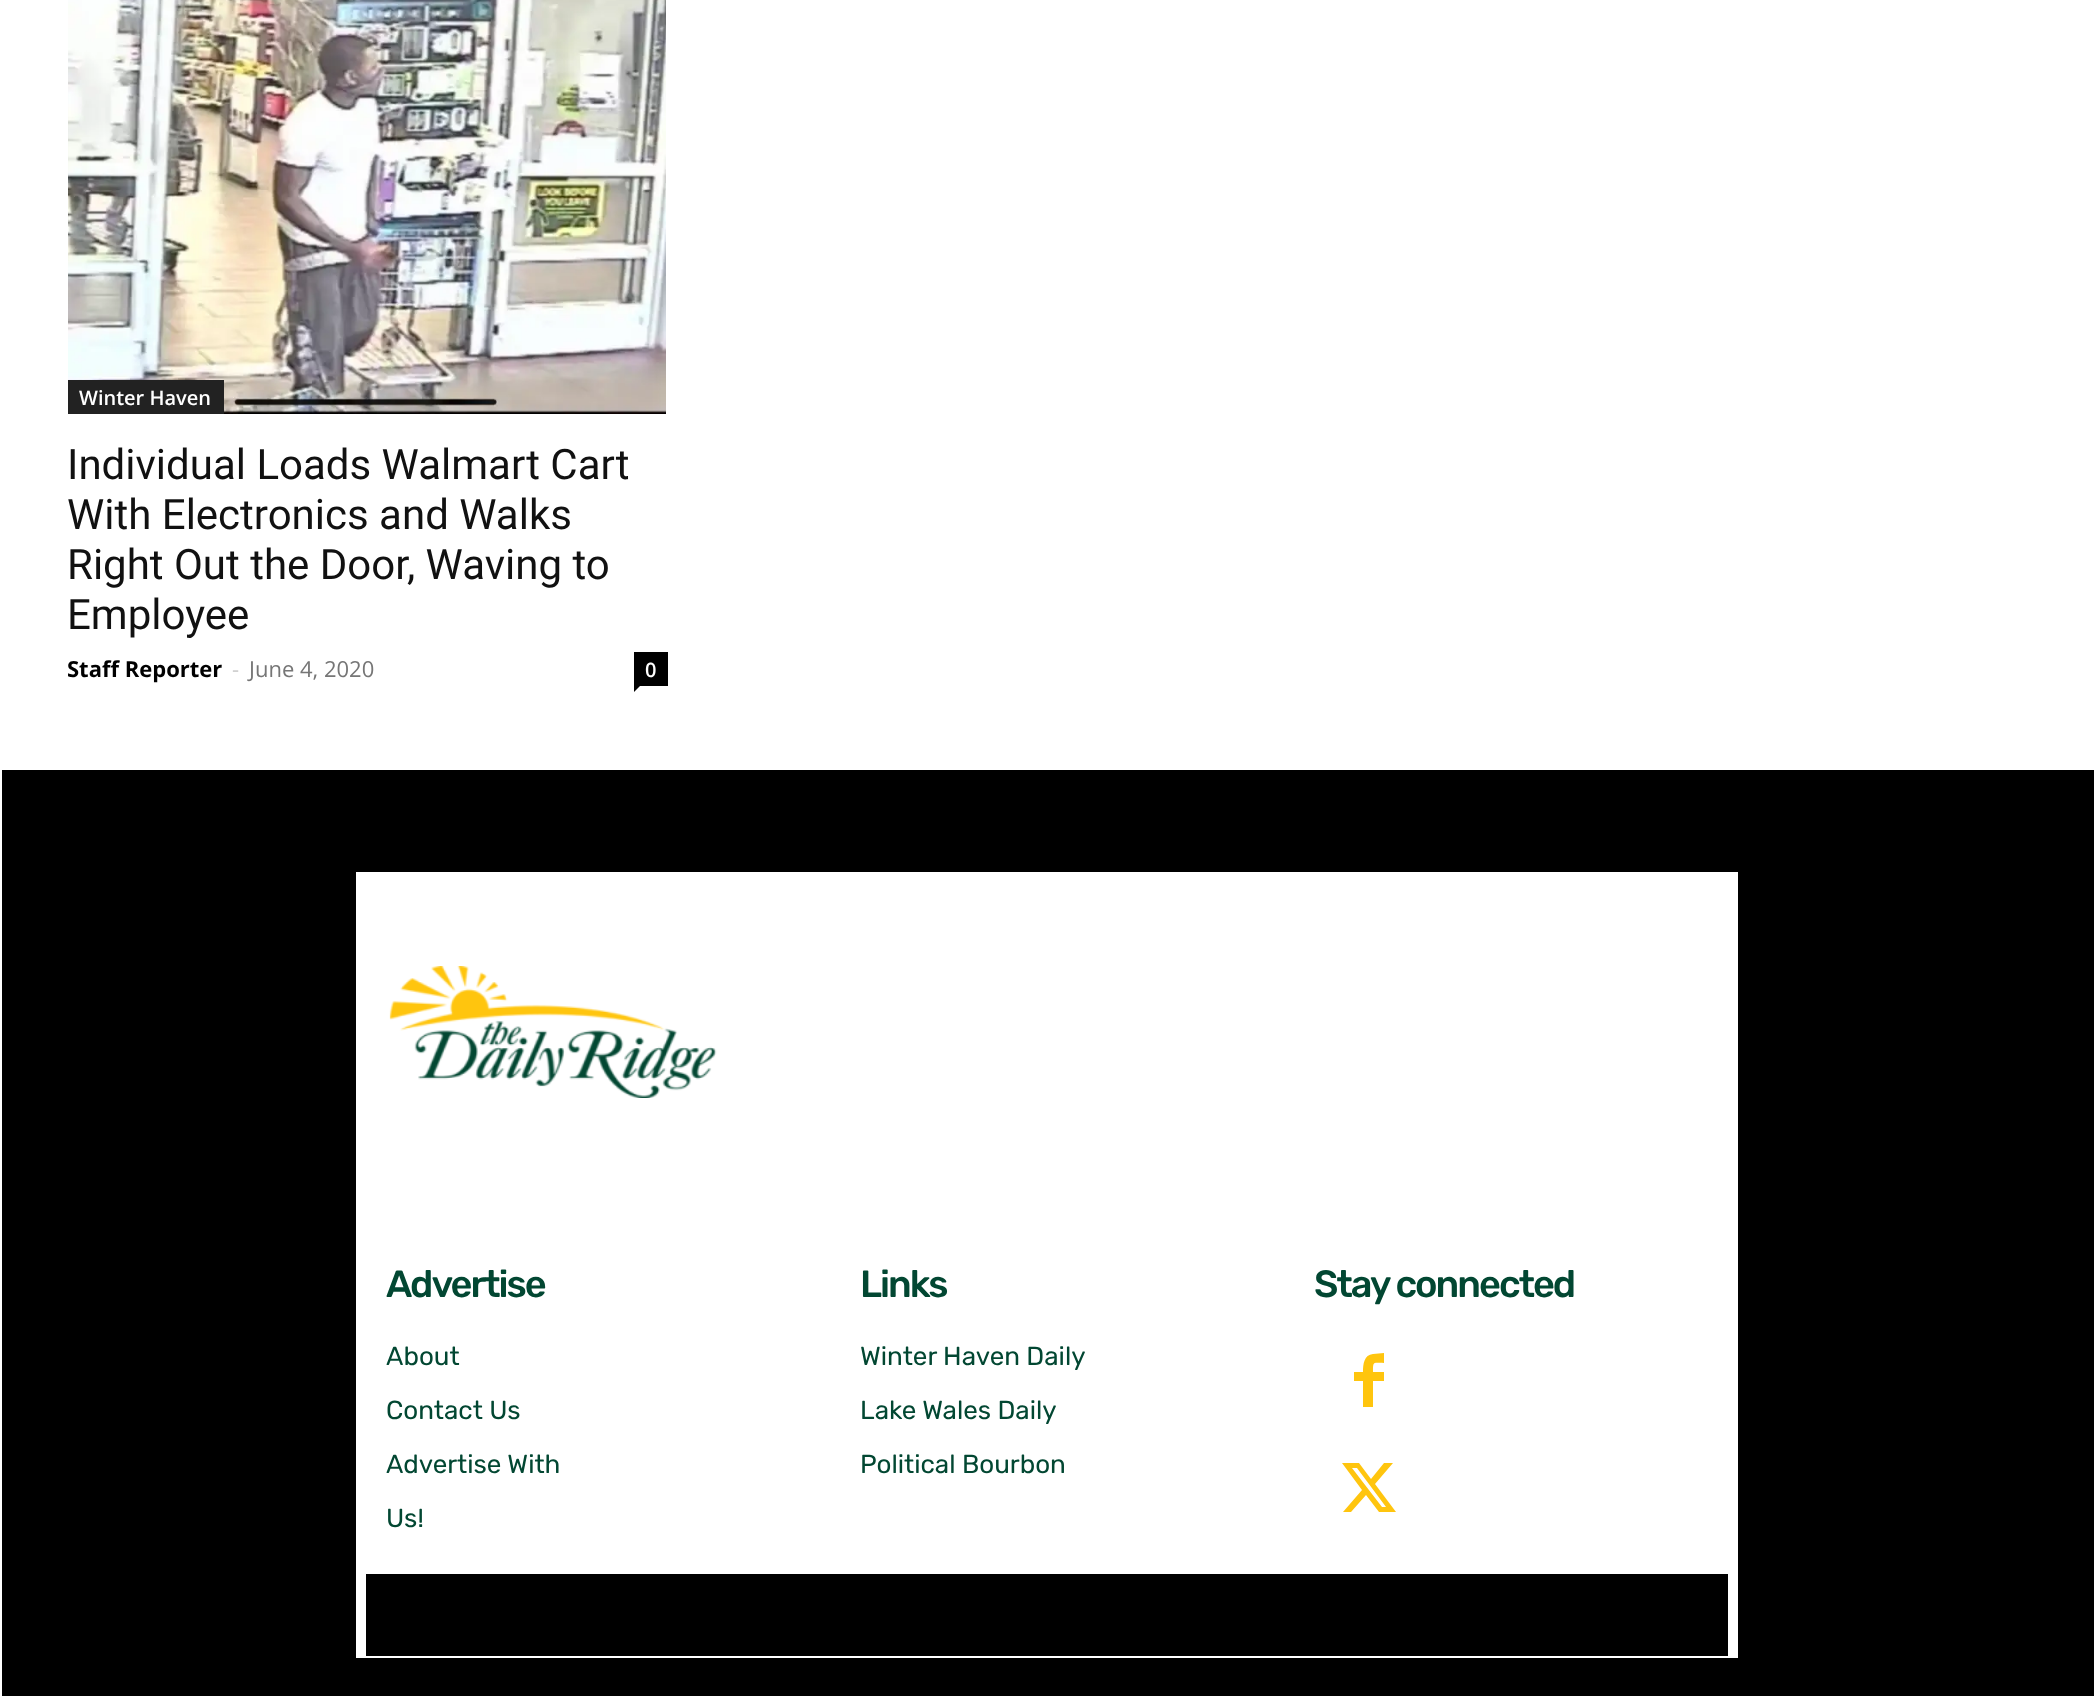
(async () => {
    const canvas = document.querySelector("canvas");
    canvas.width = 2094;
    canvas.height = 1696;
    const context = canvas.getContext("2d");
    context.miterLimit = 4;
    context.fontKerning = "normal";
    function write(s, x, y, font, color) {
        context.font = font;
        context.fillStyle = color;
        context.fillText(s, x, y);
    }
    function block(x, y, w, h, color) {
        context.fillStyle = color;
        context.fillRect(x, y, w, h);
    }
    async function photo(src, x, y, w, h) {
        const img = new Image();
        img.src = src;
        await img.decode();
        context.drawImage(img, x, y, w, h);
    }

    block(0, 0, 2094, 1696, "rgb(255, 255, 255)");
    await photo("media/1.png", 68, 0, 598, 414);
    block(68, 380, 156, 34, "rgb(34, 34, 34)");
    write("Winter Haven", 79, 405, "600 20px Open Sans", "rgb(255, 255, 255)");
    write("Individual Loads Walmart Cart", 67, 479, "42px Roboto", "rgb(17, 17, 17)");
    write("With Electronics and Walks", 67, 529, "42px Roboto", "rgb(17, 17, 17)");
    write("Right Out the Door, Waving to", 67, 579, "42px Roboto", "rgb(17, 17, 17)");
    write("Employee", 67, 629, "42px Roboto", "rgb(17, 17, 17)");
    write("Staff Reporter", 67, 677, "bold 22px Open Sans", "rgb(0, 0, 0)");
    write("-", 232, 677, "22px Open Sans", "rgb(204, 204, 204)");
    write("June 4, 2020", 249, 677, "22px Open Sans", "rgb(118, 118, 118)");
    block(634, 652, 34, 34, "rgb(0, 0, 0)");
    write("0", 645, 677, "600 20px Open Sans", "rgb(255, 255, 255)");
    context.fillStyle = "rgb(0, 0, 0)";
    context.beginPath();
    context.moveTo(634, 686);
    context.lineTo(640, 686);
    context.lineTo(634, 692);
    context.closePath();
    context.fill();
    block(2, 770, 2092, 926, "rgb(0, 0, 0)");
    block(356, 872, 1382, 786, "rgb(255, 255, 255)");
    await photo("media/2.png", 389, 966, 328, 132);
    context.letterSpacing = "-2px";
    write("Advertise", 386, 1297, "500 38px Rubik", "rgb(2, 71, 50)");
    context.letterSpacing = "0px";
    write("About", 386, 1365, "26px Rubik", "rgb(2, 71, 50)");
    write("Contact Us", 386, 1419, "26px Rubik", "rgb(2, 71, 50)");
    write("Advertise With", 386, 1473, "26px Rubik", "rgb(2, 71, 50)");
    write("Us!", 386, 1527, "26px Rubik", "rgb(2, 71, 50)");
    context.letterSpacing = "-2px";
    write("Links", 860, 1297, "500 38px Rubik", "rgb(2, 71, 50)");
    context.letterSpacing = "0px";
    write("Winter Haven Daily", 860, 1365, "26px Rubik", "rgb(2, 71, 50)");
    write("Lake Wales Daily", 860, 1419, "26px Rubik", "rgb(2, 71, 50)");
    write("Political Bourbon", 860, 1473, "26px Rubik", "rgb(2, 71, 50)");
    context.letterSpacing = "-2px";
    write("Stay connected", 1314, 1297, "500 38px Rubik", "rgb(2, 71, 50)");
    context.fillStyle = "rgb(255, 197, 14)";
    context.beginPath();
    context.moveTo(1384, 1363);
    context.bezierCurveTo(1373, 1363, 1373, 1361, 1373, 1372);
    context.lineTo(1384, 1372);
    context.lineTo(1384, 1381);
    context.lineTo(1373, 1381);
    context.lineTo(1373, 1407);
    context.lineTo(1363, 1407);
    context.lineTo(1363, 1381);
    context.lineTo(1354, 1381);
    context.lineTo(1354, 1372);
    context.lineTo(1363, 1372);
    context.bezierCurveTo(1363, 1364, 1364, 1355, 1373, 1354);
    context.lineTo(1384, 1353);
    context.closePath();
    context.fill();
    context.beginPath();
    context.moveTo(1384, 1463);
    context.lineTo(1393, 1463);
    context.lineTo(1375, 1484);
    context.lineTo(1396, 1512);
    context.lineTo(1379, 1512);
    context.lineTo(1366, 1495);
    context.lineTo(1351, 1512);
    context.lineTo(1343, 1512);
    context.lineTo(1362, 1490);
    context.lineTo(1342, 1463);
    context.lineTo(1359, 1463);
    context.lineTo(1371, 1479);
    context.closePath();
    context.moveTo(1382, 1507);
    context.lineTo(1386, 1507);
    context.lineTo(1357, 1468);
    context.lineTo(1352, 1468);
    context.closePath();
    context.fill();
    block(366, 1574, 1362, 82, "rgb(0, 0, 0)");
})();
